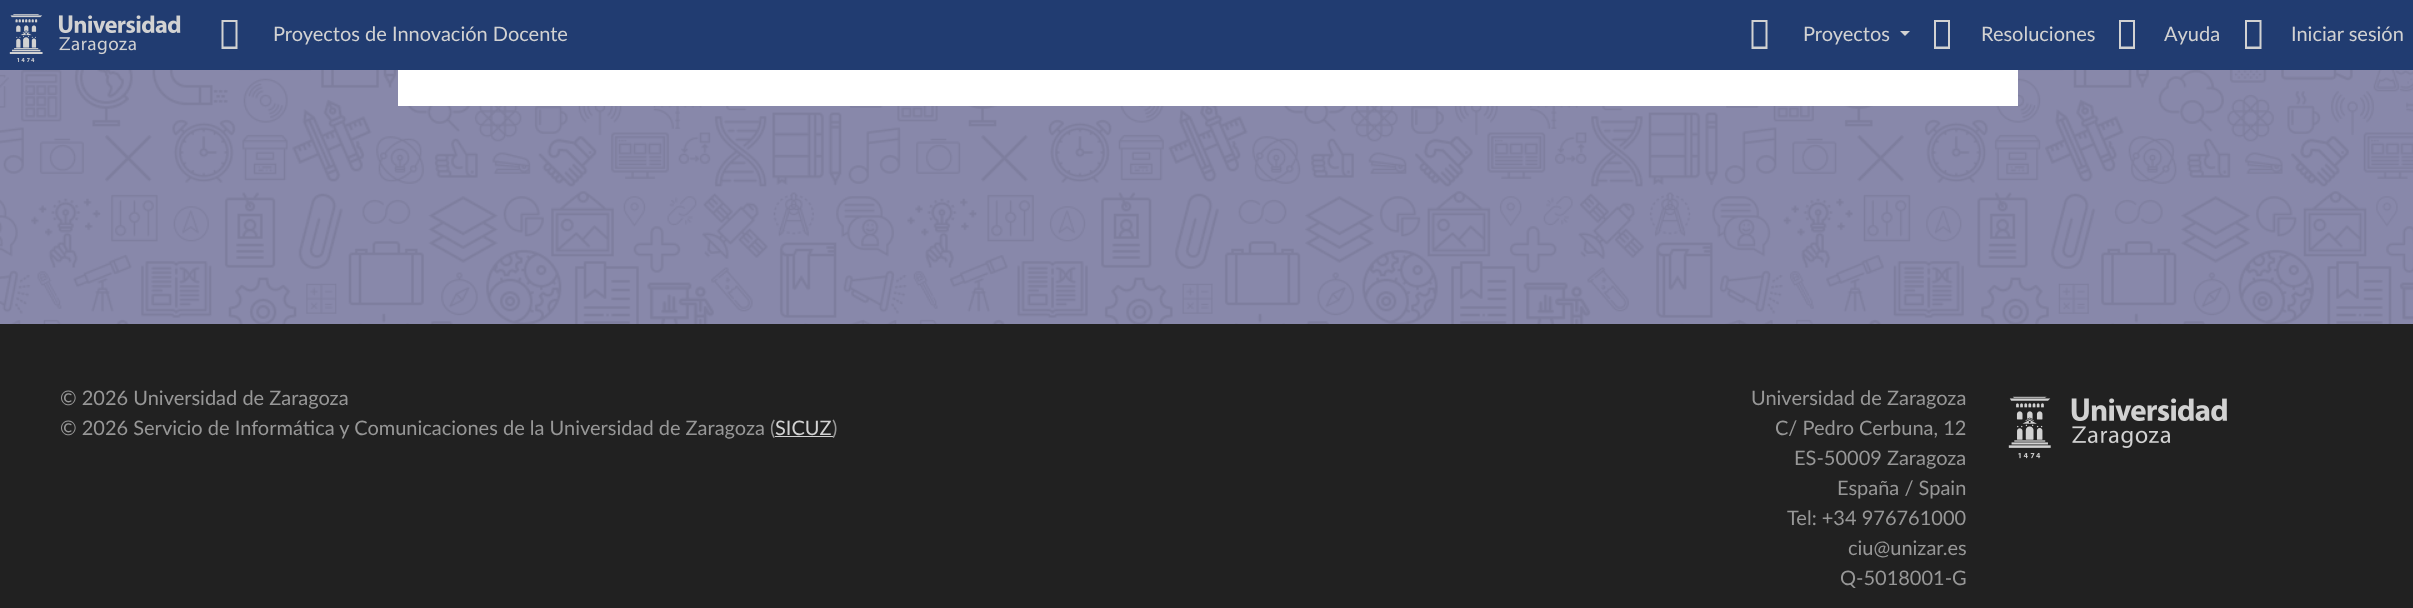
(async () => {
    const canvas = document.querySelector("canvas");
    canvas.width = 2413;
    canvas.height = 608;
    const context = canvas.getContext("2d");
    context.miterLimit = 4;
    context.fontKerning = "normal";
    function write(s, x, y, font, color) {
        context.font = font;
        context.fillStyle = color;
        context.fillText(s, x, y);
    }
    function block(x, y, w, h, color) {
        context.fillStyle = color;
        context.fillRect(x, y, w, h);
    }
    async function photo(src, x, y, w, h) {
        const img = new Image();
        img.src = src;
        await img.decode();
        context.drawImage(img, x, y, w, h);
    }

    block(0, 0, 2413, 608, "rgb(136, 136, 170)");
    await photo("media/1.png", 0, 70, 2413, 254);
    block(0, 0, 2413, 70, "rgb(33, 60, 113)");
    await photo("media/2.png", 9, 14, 172, 48);
    context.fillStyle = "rgb(210, 210, 210)";
    context.beginPath();
    context.moveTo(221.5, 49);
    context.lineTo(221.5, 20);
    context.lineTo(237.5, 20);
    context.lineTo(237.5, 49);
    context.closePath();
    context.moveTo(223.5, 46.5);
    context.lineTo(235.5, 46.5);
    context.lineTo(235.5, 22);
    context.lineTo(223.5, 22);
    context.closePath();
    context.fill();
    write("Proyectos de Innovación Docente", 273, 41, "20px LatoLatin", "rgb(210, 210, 210)");
    context.beginPath();
    context.moveTo(1751.5, 49);
    context.lineTo(1751.5, 20);
    context.lineTo(1767.5, 20);
    context.lineTo(1767.5, 49);
    context.closePath();
    context.moveTo(1753.5, 46.5);
    context.lineTo(1765.5, 46.5);
    context.lineTo(1765.5, 22);
    context.lineTo(1753.5, 22);
    context.closePath();
    context.fill();
    write("Proyectos", 1803, 41, "20px LatoLatin", "rgb(210, 210, 210)");
    context.beginPath();
    context.moveTo(1900, 31);
    context.lineTo(1910, 31);
    context.lineTo(1905, 36);
    context.closePath();
    context.fill();
    context.beginPath();
    context.moveTo(1934, 49);
    context.lineTo(1934, 20);
    context.lineTo(1950, 20);
    context.lineTo(1950, 49);
    context.closePath();
    context.moveTo(1936, 46.5);
    context.lineTo(1948, 46.5);
    context.lineTo(1948, 22);
    context.lineTo(1936, 22);
    context.closePath();
    context.fill();
    write("Resoluciones", 1981, 41, "20px LatoLatin", "rgb(210, 210, 210)");
    context.beginPath();
    context.moveTo(2119, 49);
    context.lineTo(2119, 20);
    context.lineTo(2135, 20);
    context.lineTo(2135, 49);
    context.closePath();
    context.moveTo(2121, 46.5);
    context.lineTo(2133, 46.5);
    context.lineTo(2133, 22);
    context.lineTo(2121, 22);
    context.closePath();
    context.fill();
    write("Ayuda", 2164, 41, "20px LatoLatin", "rgb(210, 210, 210)");
    context.beginPath();
    context.moveTo(2245, 49);
    context.lineTo(2245, 20);
    context.lineTo(2261.5, 20);
    context.lineTo(2261.5, 49);
    context.closePath();
    context.moveTo(2247, 46.5);
    context.lineTo(2259.5, 46.5);
    context.lineTo(2259.5, 22);
    context.lineTo(2247, 22);
    context.closePath();
    context.fill();
    write("Iniciar sesión", 2291, 41, "20px LatoLatin", "rgb(210, 210, 210)");
    block(398, 70, 1620, 36, "rgb(255, 255, 255)");
    block(0, 324, 2413, 284, "rgb(33, 33, 33)");
    write("© 2026 Universidad de Zaragoza", 60, 405, "20px LatoLatin", "rgb(151, 151, 151)");
    write("© 2026 Servicio de Informática y Comunicaciones de la Universidad de Zaragoza (", 60, 435, "20px LatoLatin", "rgb(151, 151, 151)");
    write("SICUZ", 775, 435, "20px LatoLatin", "rgb(210, 210, 210)");
    block(775, 436, 58, 1, "rgb(210, 210, 210)");
    write(")", 832, 435, "20px LatoLatin", "rgb(151, 151, 151)");
    write("Universidad de Zaragoza", 1751, 405, "20px LatoLatin", "rgb(151, 151, 151)");
    write("C/ Pedro Cerbuna, 12", 1775, 435, "20px LatoLatin", "rgb(151, 151, 151)");
    write("ES-50009 Zaragoza", 1794, 465, "20px LatoLatin", "rgb(151, 151, 151)");
    write("España / Spain", 1837, 495, "20px LatoLatin", "rgb(151, 151, 151)");
    write("Tel: +34 976761000", 1787, 525, "20px LatoLatin", "rgb(151, 151, 151)");
    write("ciu@unizar.es", 1848, 555, "20px LatoLatin", "rgb(151, 151, 151)");
    write("Q-5018001-G", 1840, 585, "20px LatoLatin", "rgb(151, 151, 151)");
    await photo("media/3.png", 2008, 396, 219, 63);
})();
